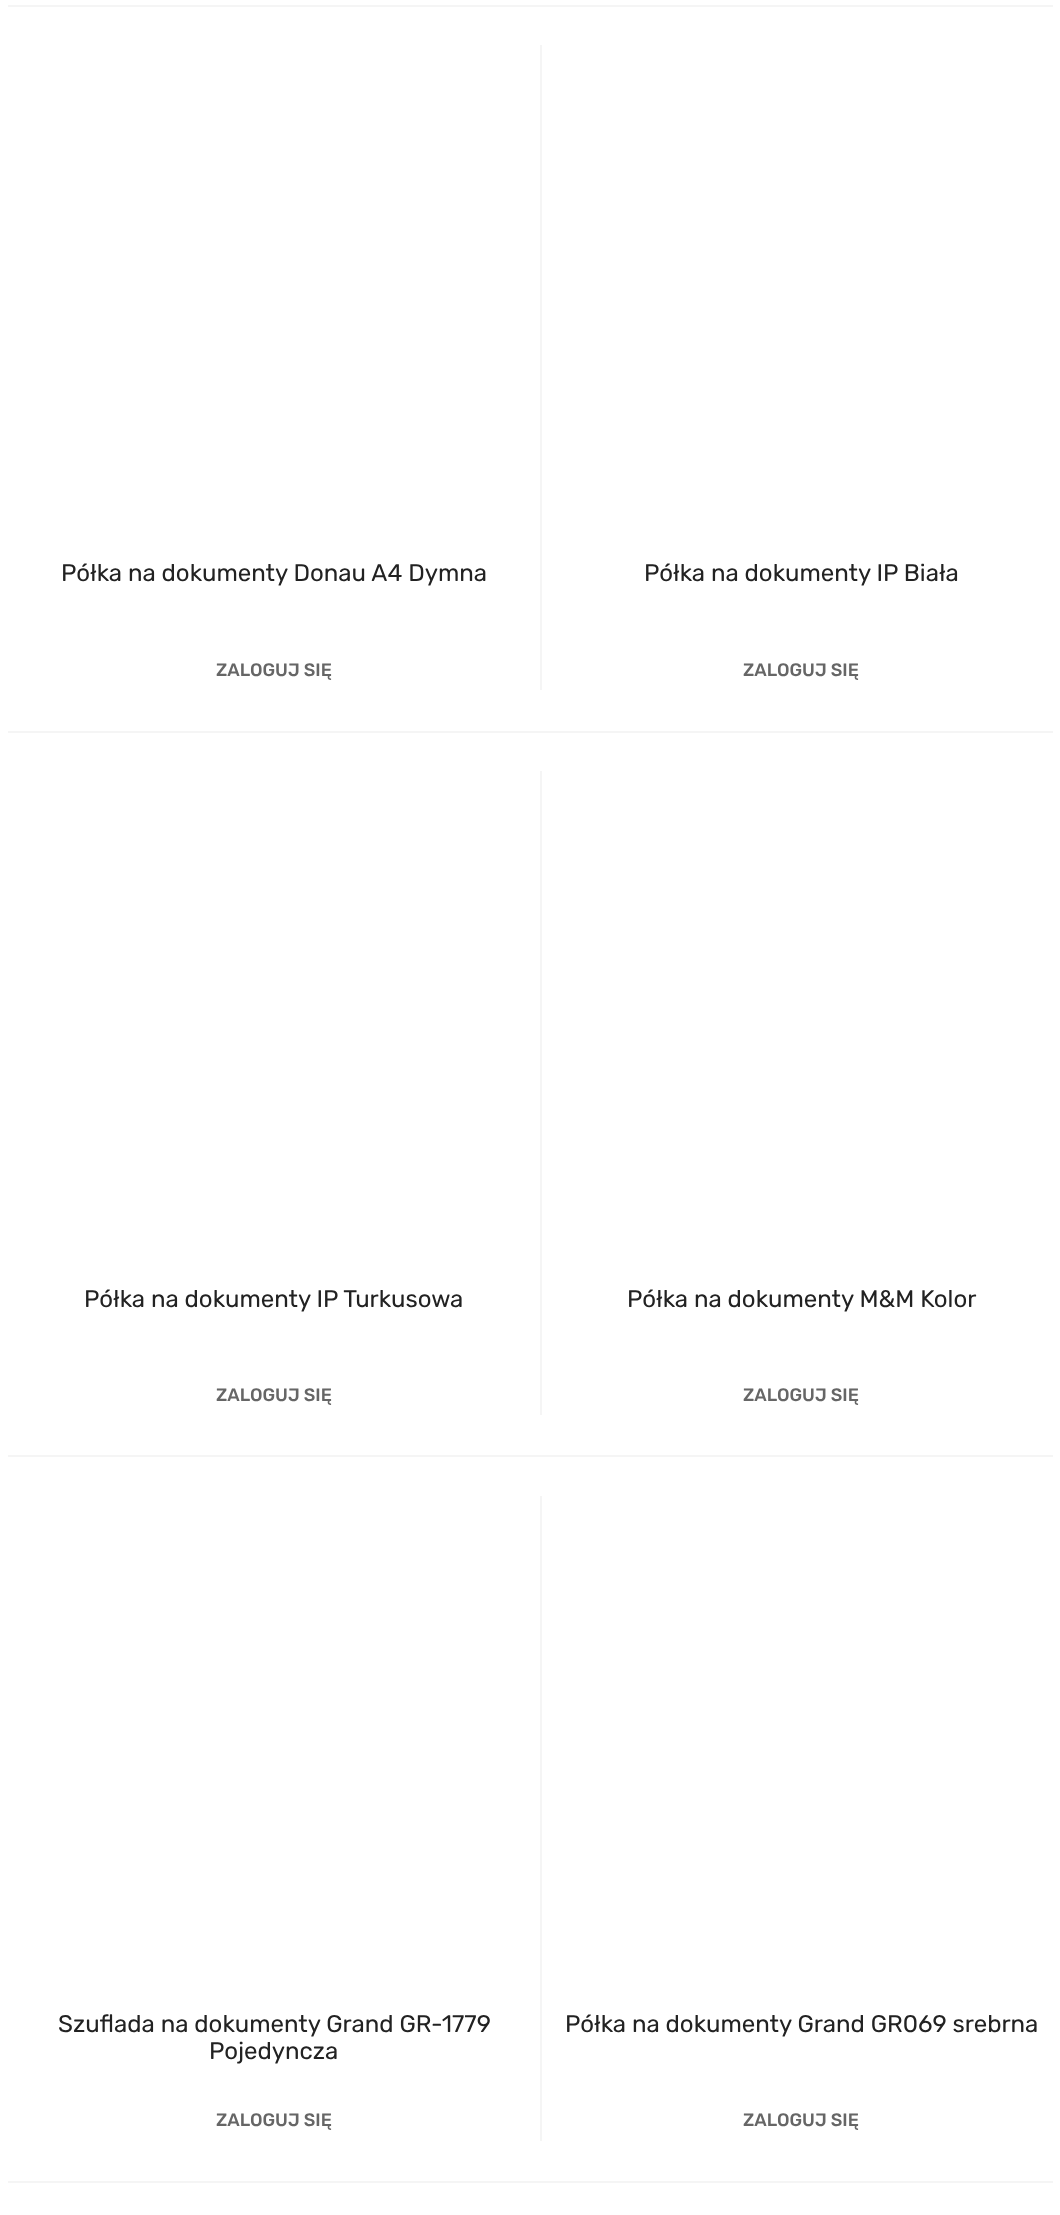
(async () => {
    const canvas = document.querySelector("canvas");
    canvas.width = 1060;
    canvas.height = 2215;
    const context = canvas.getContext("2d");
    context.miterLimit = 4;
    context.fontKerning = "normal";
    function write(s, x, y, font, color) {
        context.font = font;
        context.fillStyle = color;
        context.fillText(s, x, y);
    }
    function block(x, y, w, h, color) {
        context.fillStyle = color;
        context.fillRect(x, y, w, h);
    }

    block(0, 0, 1060, 2215, "rgb(255, 255, 255)");
    block(8, 5, 1052, 2, "rgb(245, 245, 245)");
    write("Półka na dokumenty Donau A4 Dymna", 61, 581, "24px Rubik", "rgb(34, 34, 34)");
    write("ZALOGUJ SIĘ", 216, 676, "500 18px Rubik", "rgb(102, 102, 102)");
    block(540, 45, 2, 645, "rgb(245, 245, 245)");
    block(8, 731, 1052, 2, "rgb(245, 245, 245)");
    write("Półka na dokumenty IP Biała", 644, 581, "24px Rubik", "rgb(34, 34, 34)");
    write("ZALOGUJ SIĘ", 743, 676, "500 18px Rubik", "rgb(102, 102, 102)");
    write("Półka na dokumenty IP Turkusowa", 84, 1307, "24px Rubik", "rgb(34, 34, 34)");
    write("ZALOGUJ SIĘ", 216, 1401, "500 18px Rubik", "rgb(102, 102, 102)");
    block(540, 771, 2, 644, "rgb(245, 245, 245)");
    block(8, 1455, 1052, 2, "rgb(245, 245, 245)");
    write("Półka na dokumenty M&M Kolor", 627, 1307, "24px Rubik", "rgb(34, 34, 34)");
    write("ZALOGUJ SIĘ", 743, 1401, "500 18px Rubik", "rgb(102, 102, 102)");
    write("Szuflada na dokumenty Grand GR-1779", 58, 2032, "24px Rubik", "rgb(34, 34, 34)");
    write("Pojedyncza", 209, 2059, "24px Rubik", "rgb(34, 34, 34)");
    write("ZALOGUJ SIĘ", 216, 2126, "500 18px Rubik", "rgb(102, 102, 102)");
    block(540, 1496, 2, 645, "rgb(245, 245, 245)");
    block(8, 2181, 1052, 2, "rgb(245, 245, 245)");
    write("Półka na dokumenty Grand GR069 srebrna", 565, 2032, "24px Rubik", "rgb(34, 34, 34)");
    write("ZALOGUJ SIĘ", 743, 2126, "500 18px Rubik", "rgb(102, 102, 102)");
    block(1053, 0, 7, 2183, "rgb(255, 255, 255)");
})();
